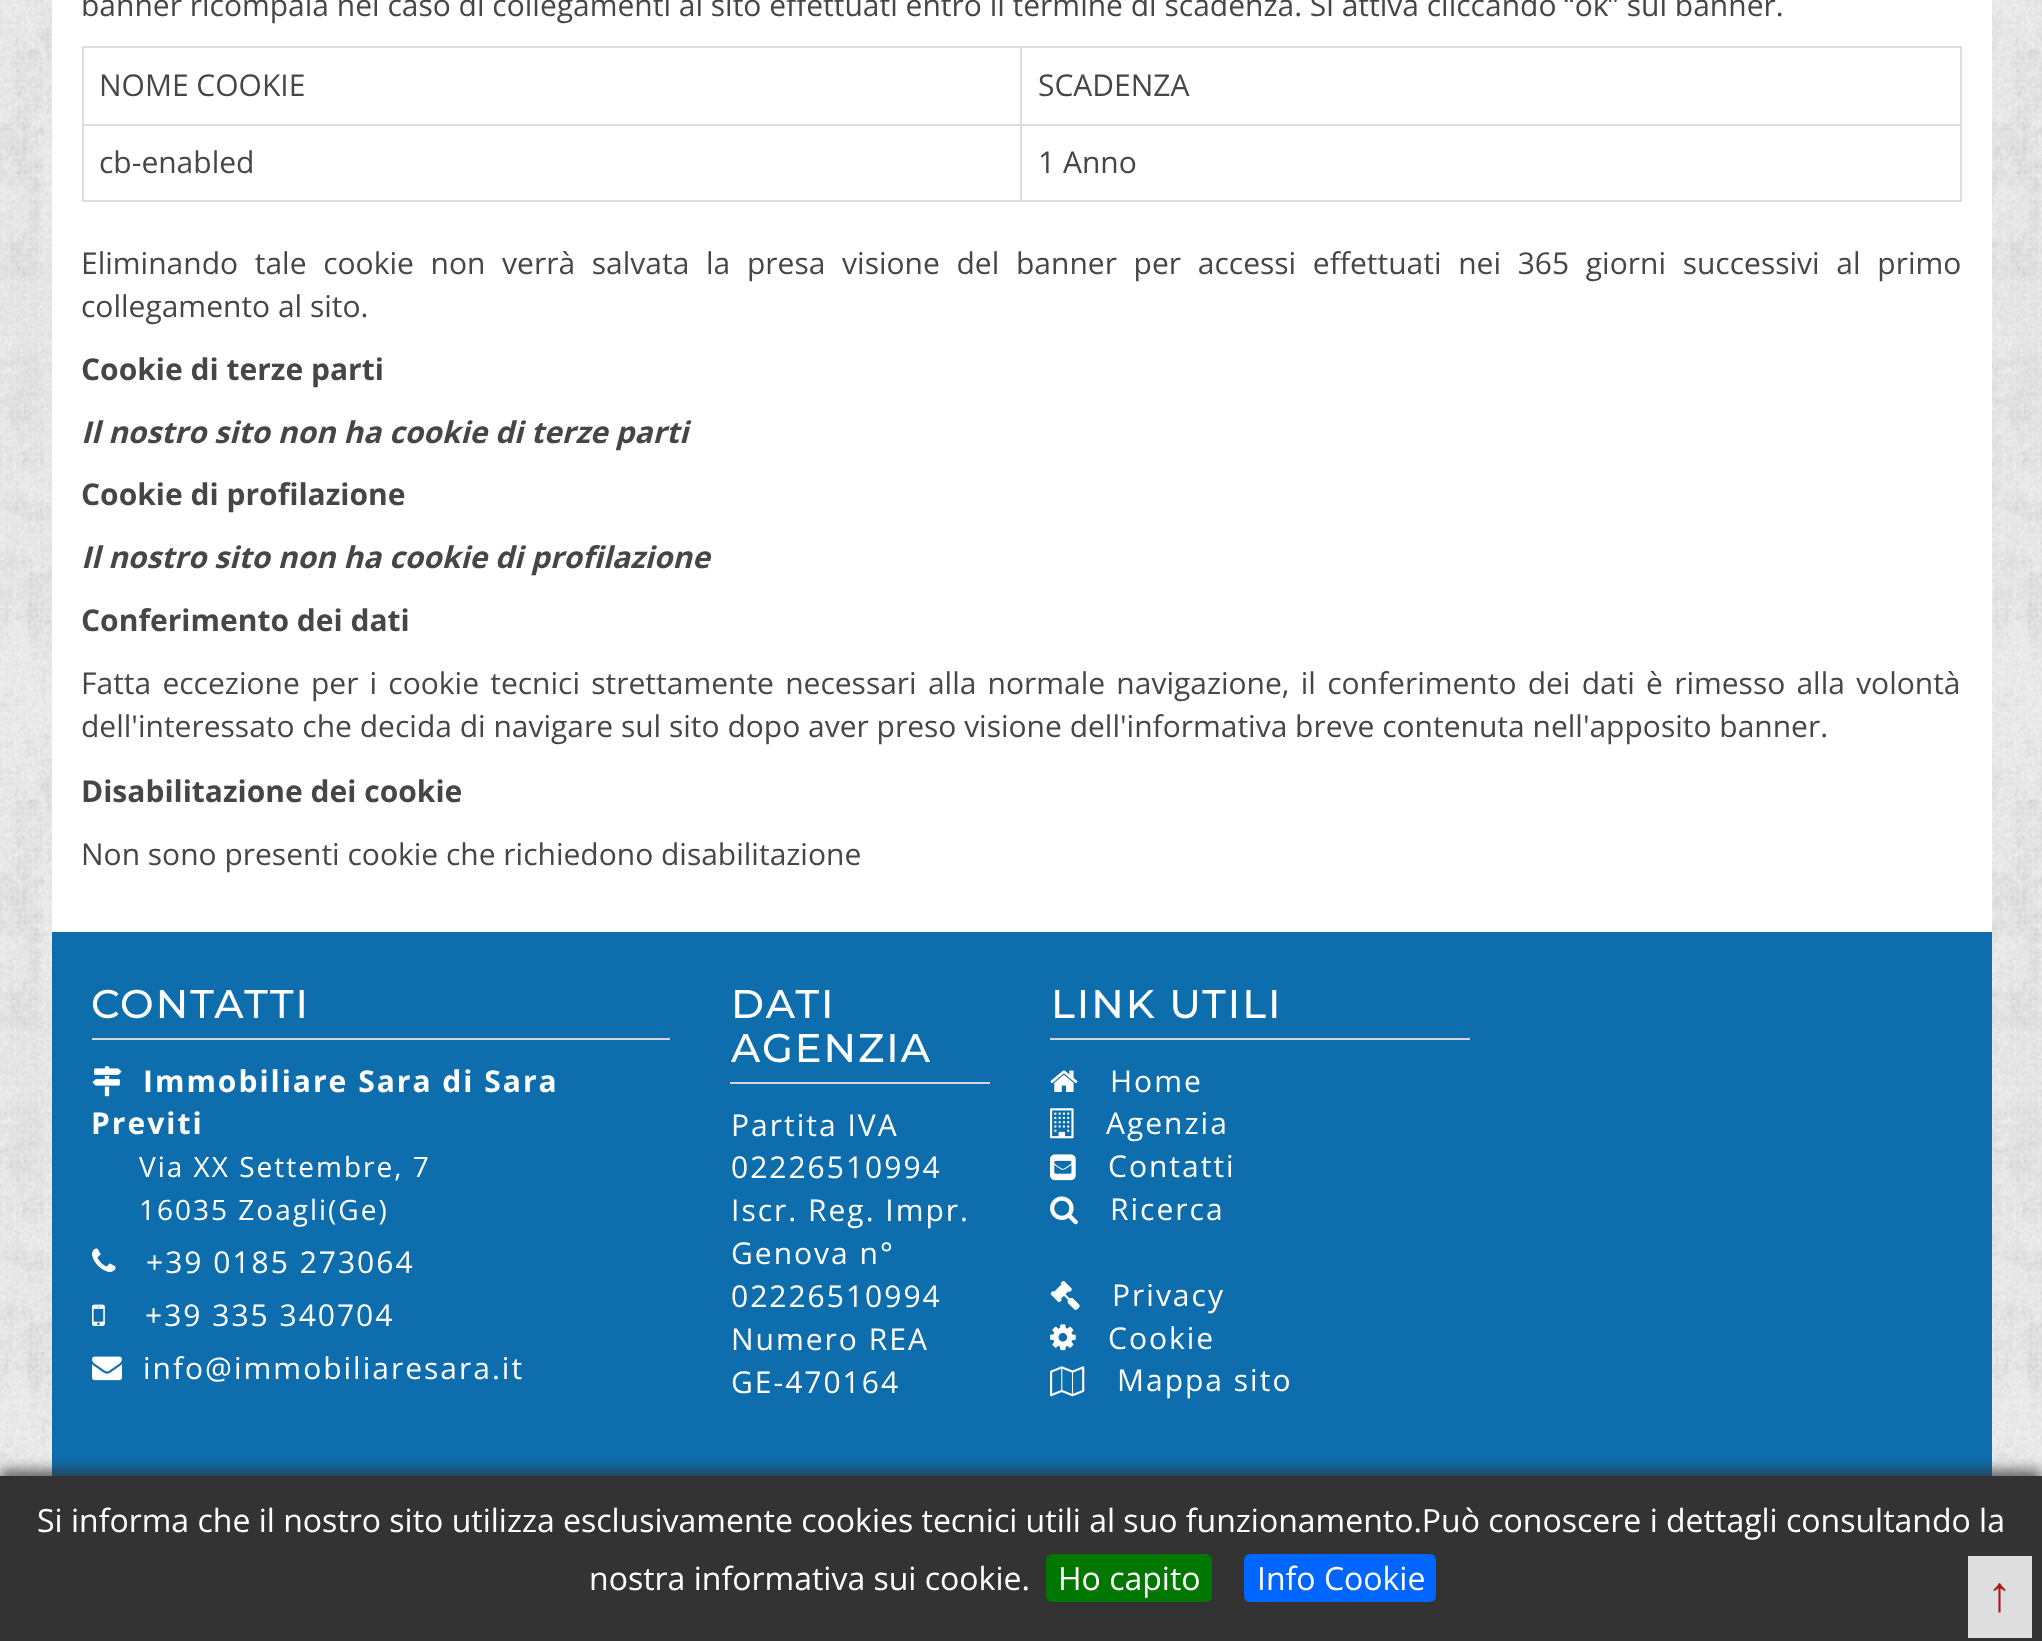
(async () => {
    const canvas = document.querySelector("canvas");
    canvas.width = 2042;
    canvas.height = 1641;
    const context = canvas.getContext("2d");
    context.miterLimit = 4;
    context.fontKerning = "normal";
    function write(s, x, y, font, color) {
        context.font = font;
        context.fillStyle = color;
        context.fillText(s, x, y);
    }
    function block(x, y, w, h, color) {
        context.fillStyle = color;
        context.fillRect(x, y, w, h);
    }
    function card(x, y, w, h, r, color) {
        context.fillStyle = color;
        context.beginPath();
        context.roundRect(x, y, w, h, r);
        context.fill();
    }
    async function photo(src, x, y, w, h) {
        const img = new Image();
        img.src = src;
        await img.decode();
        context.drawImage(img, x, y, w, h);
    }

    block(0, 0, 2042, 1641, "rgb(255, 255, 255)");
    await photo("media/1.png", 0, 0, 2042, 1476);
    block(52, 0, 1940, 932, "rgb(255, 255, 255)");
    write("banner ricompaia nel caso di collegamenti al sito effettuati entro il termine di scadenza. Si attiva cliccando “ok” sul banner.", 81, 16, "30px Open Sans", "rgb(70, 70, 70)");
    block(82, 46, 1880, 2, "rgb(221, 221, 221)");
    block(1960, 46, 2, 156, "rgb(221, 221, 221)");
    block(82, 200, 1880, 2, "rgb(221, 221, 221)");
    block(82, 46, 2, 156, "rgb(221, 221, 221)");
    write("NOME COOKIE", 99, 96, "30px Open Sans", "rgb(70, 70, 70)");
    block(1020, 124, 942, 2, "rgb(221, 221, 221)");
    block(1020, 124, 2, 78, "rgb(221, 221, 221)");
    block(82, 124, 940, 2, "rgb(221, 221, 221)");
    block(1020, 46, 2, 80, "rgb(221, 221, 221)");
    write("SCADENZA", 1038, 96, "30px Open Sans", "rgb(70, 70, 70)");
    write("cb-enabled", 99, 173, "30px Open Sans", "rgb(70, 70, 70)");
    write("1 Anno", 1038, 173, "30px Open Sans", "rgb(70, 70, 70)");
    context.wordSpacing = "8.9px";
    write("Eliminando tale cookie non verrà salvata la presa visione del banner per accessi effettuati nei 365 giorni successivi al primo", 81, 274, "30px Open Sans", "rgb(70, 70, 70)");
    context.wordSpacing = "0px";
    write("collegamento al sito.", 81, 317, "30px Open Sans", "rgb(70, 70, 70)");
    write("Cookie di terze parti", 81, 380, "bold 30px Open Sans", "rgb(70, 70, 70)");
    write("Il nostro sito non ha cookie di terze parti", 81, 443, "italic bold 30px Open Sans", "rgb(70, 70, 70)");
    write("Cookie di profilazione", 81, 505, "bold 30px Open Sans", "rgb(70, 70, 70)");
    write("Il nostro sito non ha cookie di profilazione", 81, 568, "italic bold 30px Open Sans", "rgb(70, 70, 70)");
    write("Conferimento dei dati", 81, 631, "bold 30px Open Sans", "rgb(70, 70, 70)");
    context.wordSpacing = "3.4px";
    write("Fatta eccezione per i cookie tecnici strettamente necessari alla normale navigazione, il conferimento dei dati è rimesso alla volontà", 81, 694, "30px Open Sans", "rgb(70, 70, 70)");
    context.wordSpacing = "0px";
    write("dell'interessato che decida di navigare sul sito dopo aver preso visione dell'informativa breve contenuta nell'apposito banner.", 81, 737, "30px Open Sans", "rgb(70, 70, 70)");
    write("Disabilitazione dei cookie", 81, 802, "bold 30px Open Sans", "rgb(70, 70, 70)");
    write("Non sono presenti cookie che richiedono disabilitazione", 81, 865, "30px Open Sans", "rgb(70, 70, 70)");
    block(52, 932, 1940, 544, "rgb(14, 109, 173)");
    context.letterSpacing = "2px";
    write("CONTATTI", 91, 1018, "500 40px Montserrat", "rgb(255, 255, 255)");
    block(92, 1038, 578, 2, "rgb(215, 215, 215)");
    await photo("media/2.png", 92, 1066, 30, 31);
    write("Immobiliare Sara di Sara", 143, 1092, "bold 30px Open Sans", "rgb(255, 255, 255)");
    write("Previti", 91, 1134, "bold 30px Open Sans", "rgb(255, 255, 255)");
    write("Via XX Settembre, 7", 139, 1177, "28px Open Sans", "rgb(255, 255, 255)");
    write("16035 Zoagli(Ge)", 139, 1220, "28px Open Sans", "rgb(255, 255, 255)");
    await photo("media/3.png", 92, 1248, 24, 24);
    write("+39 0185 273064", 146, 1273, "30px Open Sans", "rgb(255, 255, 255)");
    await photo("media/4.png", 92, 1304, 13, 22);
    write("+39 335 340704", 145, 1326, "30px Open Sans", "rgb(255, 255, 255)");
    await photo("media/5.png", 92, 1356, 30, 25);
    write("info@immobiliaresara.it", 143, 1379, "30px Open Sans", "rgb(255, 255, 255)");
    write("DATI", 731, 1018, "500 40px Montserrat", "rgb(255, 255, 255)");
    write("AGENZIA", 731, 1062, "500 40px Montserrat", "rgb(255, 255, 255)");
    block(730, 1082, 260, 2, "rgb(215, 215, 215)");
    write("Partita IVA", 731, 1136, "30px Open Sans", "rgb(255, 255, 255)");
    write("02226510994", 731, 1178, "30px Open Sans", "rgb(255, 255, 255)");
    write("Iscr. Reg. Impr.", 731, 1221, "30px Open Sans", "rgb(255, 255, 255)");
    write("Genova n°", 731, 1264, "30px Open Sans", "rgb(255, 255, 255)");
    write("02226510994", 731, 1307, "30px Open Sans", "rgb(255, 255, 255)");
    write("Numero REA", 731, 1350, "30px Open Sans", "rgb(255, 255, 255)");
    write("GE-470164", 731, 1393, "30px Open Sans", "rgb(255, 255, 255)");
    write("LINK UTILI", 1051, 1018, "500 40px Montserrat", "rgb(255, 255, 255)");
    block(1050, 1038, 420, 2, "rgb(215, 215, 215)");
    await photo("media/6.png", 1050, 1070, 28, 22);
    write("Home", 1110, 1092, "30px Open Sans", "rgb(255, 255, 255)");
    await photo("media/7.png", 1050, 1108, 24, 31);
    write("Agenzia", 1106, 1134, "30px Open Sans", "rgb(255, 255, 255)");
    await photo("media/8.png", 1050, 1154, 26, 27);
    write("Contatti", 1108, 1177, "30px Open Sans", "rgb(255, 255, 255)");
    await photo("media/9.png", 1050, 1196, 28, 29);
    write("Ricerca", 1110, 1220, "30px Open Sans", "rgb(255, 255, 255)");
    await photo("media/10.png", 1050, 1281, 30, 29);
    write("Privacy", 1112, 1306, "30px Open Sans", "rgb(255, 255, 255)");
    await photo("media/11.png", 1050, 1324, 26, 27);
    write("Cookie", 1108, 1349, "30px Open Sans", "rgb(255, 255, 255)");
    await photo("media/12.png", 1050, 1366, 35, 31);
    write("Mappa sito", 1117, 1391, "30px Open Sans", "rgb(255, 255, 255)");
    context.fillStyle = "rgba(50, 50, 50, 0.75)";
    context.filter = "blur(7px)";
    context.beginPath();
    context.rect(0, 1470, 2042, 166);
    context.fill();
    context.filter = "none";
    block(0, 1476, 2042, 165, "rgb(51, 51, 51)");
    context.letterSpacing = "0px";
    write("Si informa che il nostro sito utilizza esclusivamente cookies tecnici utili al suo funzionamento.Può conoscere i dettagli consultando la", 37, 1532, "32px Open Sans", "rgb(255, 255, 255)");
    write("nostra informativa sui cookie.", 589, 1590, "32px Open Sans", "rgb(255, 255, 255)");
    card(1046, 1554, 166, 48, 6, "rgb(0, 119, 0)");
    write("Ho capito", 1058, 1590, "32px Open Sans", "rgb(255, 255, 255)");
    card(1244, 1554, 192, 48, 6, "rgb(0, 102, 255)");
    write("Info Cookie", 1257, 1590, "32px Open Sans", "rgb(255, 255, 255)");
    block(1968, 1556, 64, 82, "rgb(222, 222, 222)");
    write("↑", 1987, 1611, "50px Liberation Sans", "rgb(166, 25, 31)");
})();
